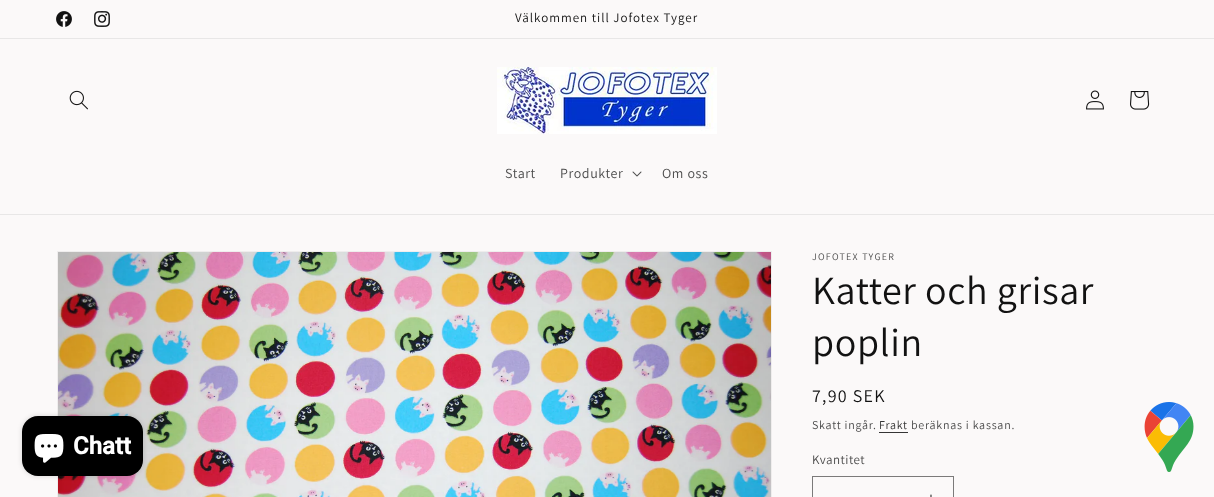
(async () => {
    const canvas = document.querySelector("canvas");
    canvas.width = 1214;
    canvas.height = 497;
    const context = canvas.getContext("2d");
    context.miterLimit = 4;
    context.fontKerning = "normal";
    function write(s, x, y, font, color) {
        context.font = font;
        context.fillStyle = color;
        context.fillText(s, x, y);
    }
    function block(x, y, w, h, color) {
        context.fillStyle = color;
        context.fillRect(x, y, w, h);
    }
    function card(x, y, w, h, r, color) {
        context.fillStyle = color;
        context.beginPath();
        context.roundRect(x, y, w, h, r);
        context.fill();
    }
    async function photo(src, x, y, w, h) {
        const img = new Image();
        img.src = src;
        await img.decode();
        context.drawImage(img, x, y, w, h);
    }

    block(0, 0, 1214, 497, "rgb(251, 249, 249)");
    block(0, 38, 1214, 1, "rgb(232, 231, 231)");
    await photo("media/1.png", 56, 11, 16, 16);
    await photo("media/2.png", 94, 11, 16, 16);
    context.letterSpacing = "1px";
    write("Välkommen till Jofotex Tyger", 515, 22, "13px Assistant", "rgb(18, 18, 18)");
    block(0, 214, 1214, 1, "rgb(232, 231, 231)");
    await photo("media/3.png", 69, 90, 19, 20);
    await photo("media/4.png", 497, 67, 220, 67);
    await photo("media/5.png", 1086, 90, 18, 20);
    await photo("media/6.png", 1130, 91, 20, 19);
    context.letterSpacing = "0.6px";
    write("Start", 505, 178, "14px Assistant", "rgb(76, 76, 76)");
    write("Produkter", 560, 178, "14px Assistant", "rgb(76, 76, 76)");
    await photo("media/7.png", 632, 171, 10, 6);
    write("Om oss", 662, 178, "14px Assistant", "rgb(76, 76, 76)");
    context.strokeStyle = "rgb(239, 237, 237)";
    context.strokeRect(57.5, 251.5, 714, 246);
    await photo("media/9.png", 58, 252, 713, 245);
    context.fillStyle = "rgba(0, 0, 0, 0.15)";
    context.filter = "blur(2.5px)";
    context.beginPath();
    context.roundRect(22, 416, 121, 60, 16);
    context.fill();
    context.filter = "none";
    card(22, 416, 121, 60, 16, "rgb(0, 0, 0)");
    await photo("media/8.png", 34, 434, 30, 29);
    context.letterSpacing = "0px";
    write("Chatt", 73, 454, "bold 24px Roboto", "rgb(255, 255, 255)");
    context.letterSpacing = "1.25px";
    write("JOFOTEX TYGER", 812, 260, "10px Assistant", "rgb(76, 76, 76)");
    context.letterSpacing = "0.6px";
    write("Katter och grisar", 812, 304, "40px Assistant", "rgb(18, 18, 18)");
    write("poplin", 812, 356, "40px Assistant", "rgb(18, 18, 18)");
    context.letterSpacing = "1.25px";
    write("7,90 SEK", 812, 402, "18px Assistant", "rgb(18, 18, 18)");
    context.letterSpacing = "0.75px";
    write("Skatt ingår.", 812, 429, "12px Assistant", "rgb(76, 76, 76)");
    write("Frakt", 879, 429, "12px Assistant", "rgb(53, 53, 53)");
    block(879, 432, 29, 1, "rgb(53, 53, 53)");
    write("beräknas i kassan.", 911, 429, "12px Assistant", "rgb(76, 76, 76)");
    context.letterSpacing = "0.5px";
    write("Kvantitet", 812, 464, "13px Assistant", "rgb(76, 76, 76)");
    await photo("media/10.png", 930, 494, 2, 3);
    context.strokeStyle = "rgb(123, 122, 122)";
    context.strokeRect(812.5, 476.5, 141, 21);
    await photo("media/11.png", 1144, 402, 50, 70);
})();
